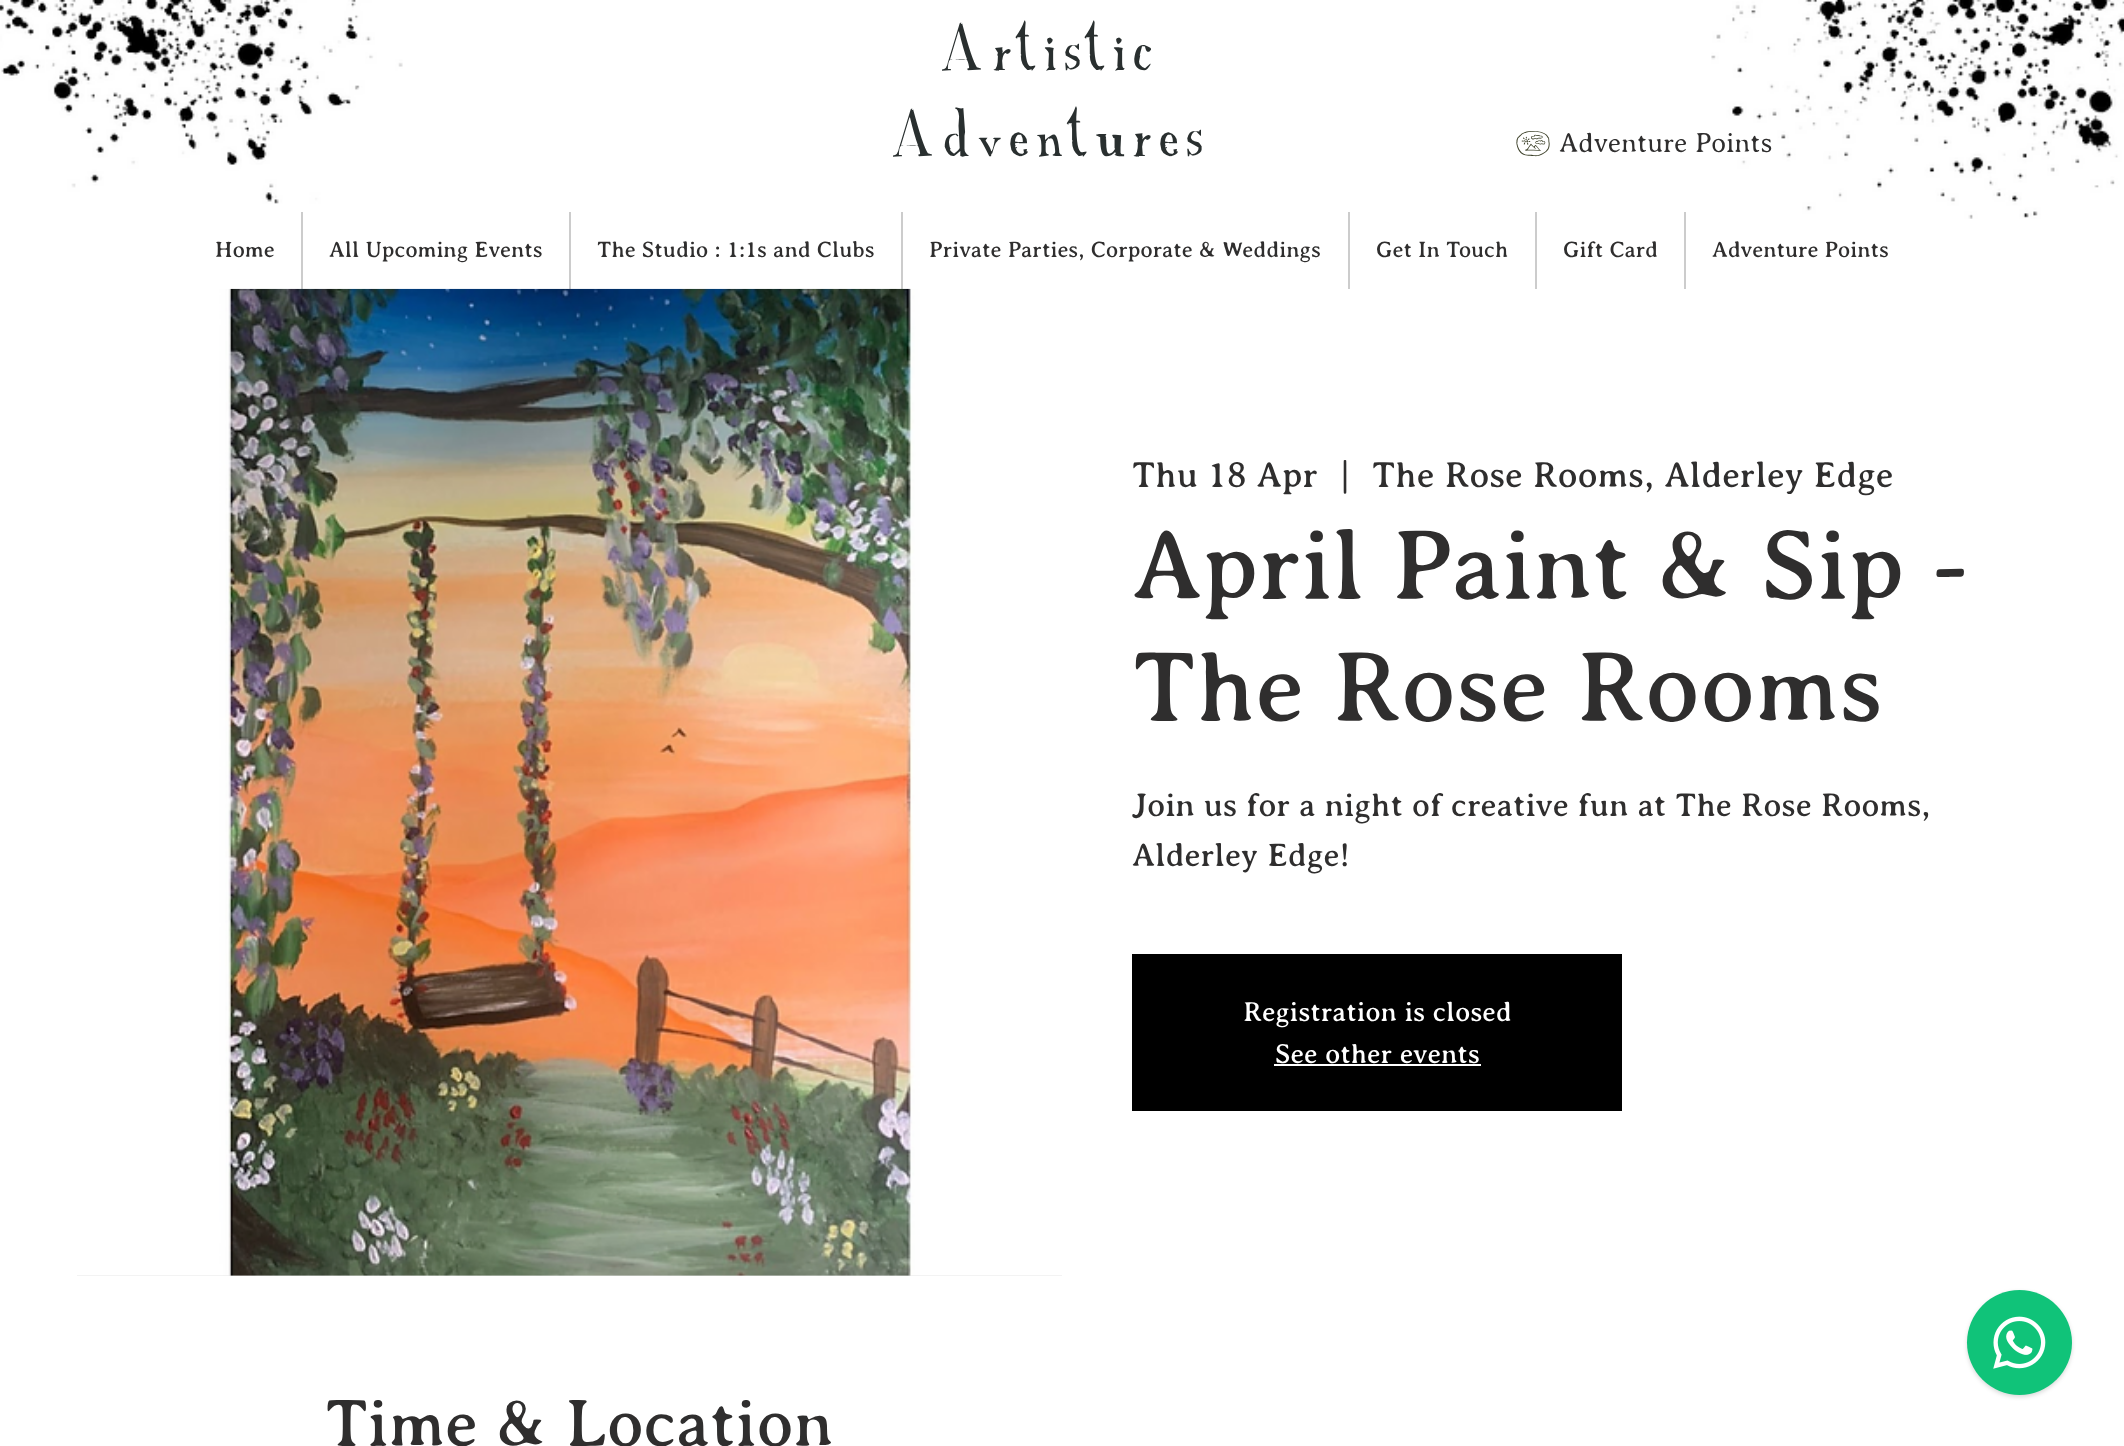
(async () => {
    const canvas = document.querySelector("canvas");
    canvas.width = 2124;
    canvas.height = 1446;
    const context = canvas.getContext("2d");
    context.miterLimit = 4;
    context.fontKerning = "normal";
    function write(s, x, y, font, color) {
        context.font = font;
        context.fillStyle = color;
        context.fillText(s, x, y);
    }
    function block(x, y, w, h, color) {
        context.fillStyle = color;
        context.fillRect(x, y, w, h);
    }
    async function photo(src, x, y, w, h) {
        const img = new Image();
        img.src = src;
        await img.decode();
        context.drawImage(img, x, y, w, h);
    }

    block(0, 0, 2124, 1446, "rgb(255, 255, 255)");
    await photo("media/1.png", 0, 0, 403, 204);
    context.letterSpacing = "6.5px";
    write("Artistic", 942, 70, "64.75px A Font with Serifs", "rgb(41, 47, 47)");
    write("Adventures", 893, 156, "64.75px A Font with Serifs", "rgb(41, 47, 47)");
    await photo("media/2.png", 1516, 131, 34, 26);
    await photo("media/3.png", 1711, 0, 413, 219);
    context.letterSpacing = "0px";
    write("Adventure Points", 1559, 152, "300 28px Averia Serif", "rgb(47, 46, 46)");
    write("Home", 215, 257, "22.75px Averia Serif", "rgb(47, 46, 46)");
    block(301, 212, 2, 77, "rgb(204, 204, 204)");
    write("All Upcoming Events", 329, 257, "22.75px Averia Serif", "rgb(47, 46, 46)");
    block(569, 212, 2, 77, "rgb(204, 204, 204)");
    write("The Studio : 1:1s and Clubs", 597, 257, "22.75px Averia Serif", "rgb(47, 46, 46)");
    block(901, 212, 2, 77, "rgb(204, 204, 204)");
    write("Private Parties, Corporate & Weddings", 929, 257, "22.75px Averia Serif", "rgb(47, 46, 46)");
    block(1348, 212, 2, 77, "rgb(204, 204, 204)");
    write("Get In Touch", 1376, 257, "22.75px Averia Serif", "rgb(47, 46, 46)");
    block(1535, 212, 2, 77, "rgb(204, 204, 204)");
    write("Gift Card", 1563, 257, "22.75px Averia Serif", "rgb(47, 46, 46)");
    block(1684, 212, 2, 77, "rgb(204, 204, 204)");
    write("Adventure Points", 1712, 257, "22.75px Averia Serif", "rgb(47, 46, 46)");
    block(77, 1275, 985, 1, "rgb(227, 227, 227)");
    await photo("media/4.png", 77, 288, 985, 988);
    write("Thu 18 Apr", 1132, 487, "36.75px Averia Serif", "rgb(47, 46, 46)");
    write("|", 1338, 487, "36.75px Averia Serif", "rgb(47, 46, 46)");
    write("The Rose Rooms, Alderley Edge", 1372, 487, "36.75px Averia Serif", "rgb(47, 46, 46)");
    write("April Paint & Sip -", 1132, 599, "101.5px Averia Serif", "rgb(47, 46, 46)");
    write("The Rose Rooms", 1132, 721, "101.5px Averia Serif", "rgb(47, 46, 46)");
    write("Join us for a night of creative fun at The Rose Rooms,", 1132, 816, "33.25px Averia Serif", "rgb(47, 46, 46)");
    write("Alderley Edge!", 1132, 866, "33.25px Averia Serif", "rgb(47, 46, 46)");
    block(1132, 954, 490, 157, "rgb(0, 0, 0)");
    write("Registration is closed", 1243, 1021, "28px Averia Serif", "rgb(255, 255, 255)");
    write("See other events", 1275, 1063, "28px Averia Serif", "rgb(255, 255, 255)");
    block(1274, 1064, 207, 2, "rgb(255, 255, 255)");
    write("Time & Location", 325, 1446, "68.25px Averia Serif", "rgb(47, 46, 46)");
    context.fillStyle = "rgba(0, 0, 0, 0.15)";
    context.filter = "blur(2px)";
    context.beginPath();
    context.roundRect(1967, 1292, 105, 105, 52.5);
    context.fill();
    context.filter = "none";
    context.fillStyle = "rgb(16, 195, 121)";
    context.beginPath();
    context.arc(2019.5, 1342.5, 52.5, 0, Math.PI * 2);
    context.fill();
    await photo("media/5.png", 1993, 1316, 53, 53);
})();
